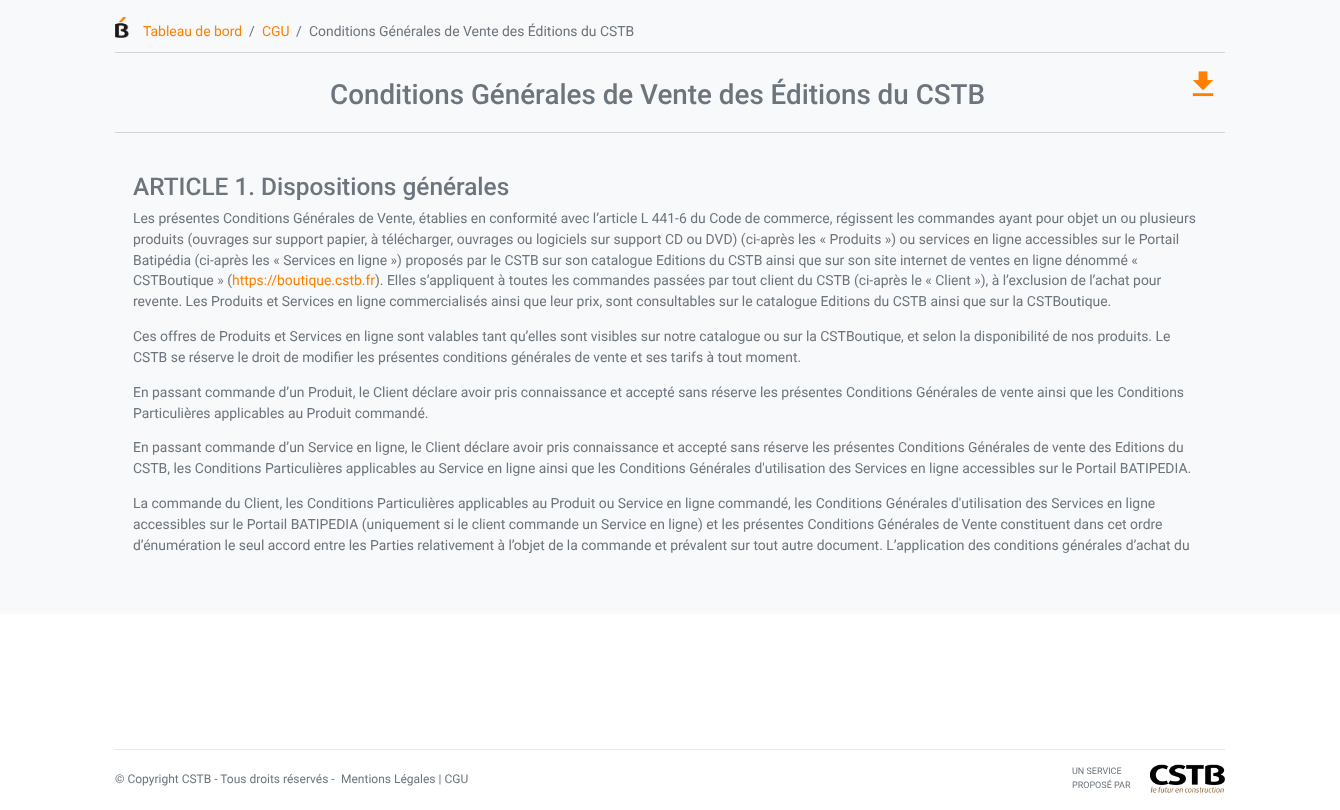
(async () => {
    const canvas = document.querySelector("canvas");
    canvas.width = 1340;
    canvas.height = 810;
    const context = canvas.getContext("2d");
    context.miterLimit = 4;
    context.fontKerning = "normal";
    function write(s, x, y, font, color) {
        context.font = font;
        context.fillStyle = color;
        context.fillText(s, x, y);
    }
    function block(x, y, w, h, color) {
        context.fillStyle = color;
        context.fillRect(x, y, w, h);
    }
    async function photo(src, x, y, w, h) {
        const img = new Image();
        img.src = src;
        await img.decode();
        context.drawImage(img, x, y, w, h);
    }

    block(0, 0, 1340, 810, "rgb(255, 255, 255)");
    block(0, 0, 1340, 614, "rgb(248, 249, 250)");
    block(115, 52, 1110, 1, "rgb(206, 212, 218)");
    await photo("media/1.png", 115, 17, 14, 21);
    write("Tableau de bord", 143, 36, "13.92px Roboto", "rgb(255, 127, 0)");
    write("/", 249, 36, "13.92px Roboto", "rgb(108, 117, 125)");
    write("CGU", 262, 36, "13.92px Roboto", "rgb(255, 127, 0)");
    write("/", 296, 36, "13.92px Roboto", "rgb(108, 117, 125)");
    write("Conditions Générales de Vente des Éditions du CSTB", 309, 36, "13.92px Roboto", "rgb(108, 117, 125)");
    block(115, 132, 1110, 1, "rgb(206, 212, 218)");
    write("Conditions Générales de Vente des Éditions du CSTB", 330, 104, "500 27.8px Roboto", "rgb(108, 117, 125)");
    await photo("media/2.png", 1192, 71, 22, 26);
    write("ARTICLE 1. Dispositions générales", 133, 195, "500 24.4px Roboto", "rgb(108, 117, 125)");
    write("Les présentes Conditions Générales de Vente, établies en conformité avec l’article L 441-6 du Code de commerce, régissent les commandes ayant pour objet un ou plusieurs", 133, 223, "13.92px Roboto", "rgb(108, 117, 125)");
    write("produits (ouvrages sur support papier, à télécharger, ouvrages ou logiciels sur support CD ou DVD) (ci-après les « Produits ») ou services en ligne accessibles sur le Portail", 133, 244, "13.92px Roboto", "rgb(108, 117, 125)");
    write("Batipédia (ci-après les « Services en ligne ») proposés par le CSTB sur son catalogue Editions du CSTB ainsi que sur son site internet de ventes en ligne dénommé «", 133, 265, "13.92px Roboto", "rgb(108, 117, 125)");
    write("CSTBoutique » (", 133, 285, "13.92px Roboto", "rgb(108, 117, 125)");
    write("https://boutique.cstb.fr", 232, 285, "13.92px Roboto", "rgb(255, 127, 0)");
    write("). Elles s’appliquent à toutes les commandes passées par tout client du CSTB (ci-après le « Client »), à l’exclusion de l’achat pour", 375, 285, "13.92px Roboto", "rgb(108, 117, 125)");
    write("revente. Les Produits et Services en ligne commercialisés ainsi que leur prix, sont consultables sur le catalogue Editions du CSTB ainsi que sur la CSTBoutique.", 133, 306, "13.92px Roboto", "rgb(108, 117, 125)");
    write("Ces offres de Produits et Services en ligne sont valables tant qu’elles sont visibles sur notre catalogue ou sur la CSTBoutique, et selon la disponibilité de nos produits. Le", 133, 341, "13.92px Roboto", "rgb(108, 117, 125)");
    write("CSTB se réserve le droit de modifier les présentes conditions générales de vente et ses tarifs à tout moment.", 133, 362, "13.92px Roboto", "rgb(108, 117, 125)");
    write("En passant commande d’un Produit, le Client déclare avoir pris connaissance et accepté sans réserve les présentes Conditions Générales de vente ainsi que les Conditions", 133, 397, "13.92px Roboto", "rgb(108, 117, 125)");
    write("Particulières applicables au Produit commandé.", 133, 418, "13.92px Roboto", "rgb(108, 117, 125)");
    write("En passant commande d’un Service en ligne, le Client déclare avoir pris connaissance et accepté sans réserve les présentes Conditions Générales de vente des Editions du", 133, 452, "13.92px Roboto", "rgb(108, 117, 125)");
    write("CSTB, les Conditions Particulières applicables au Service en ligne ainsi que les Conditions Générales d'utilisation des Services en ligne accessibles sur le Portail BATIPEDIA.", 133, 473, "13.92px Roboto", "rgb(108, 117, 125)");
    write("La commande du Client, les Conditions Particulières applicables au Produit ou Service en ligne commandé, les Conditions Générales d'utilisation des Services en ligne", 133, 508, "13.92px Roboto", "rgb(108, 117, 125)");
    write("accessibles sur le Portail BATIPEDIA (uniquement si le client commande un Service en ligne) et les présentes Conditions Générales de Vente constituent dans cet ordre", 133, 529, "13.92px Roboto", "rgb(108, 117, 125)");
    write("d’énumération le seul accord entre les Parties relativement à l’objet de la commande et prévalent sur tout autre document. L’application des conditions générales d’achat du", 133, 550, "13.92px Roboto", "rgb(108, 117, 125)");
    block(115, 749, 1110, 1, "rgb(230, 230, 230)");
    write("© Copyright CSTB - Tous droits réservés -", 115, 783, "12px Roboto", "rgb(108, 117, 125)");
    write("Mentions Légales | CGU", 341, 783, "12px Roboto", "rgb(108, 117, 125)");
    write("UN SERVICE", 1072, 774, "9px Roboto", "rgb(108, 117, 125)");
    write("PROPOSÉ PAR", 1072, 788, "9px Roboto", "rgb(108, 117, 125)");
    await photo("media/3.png", 1150, 764, 75, 29);
})();
